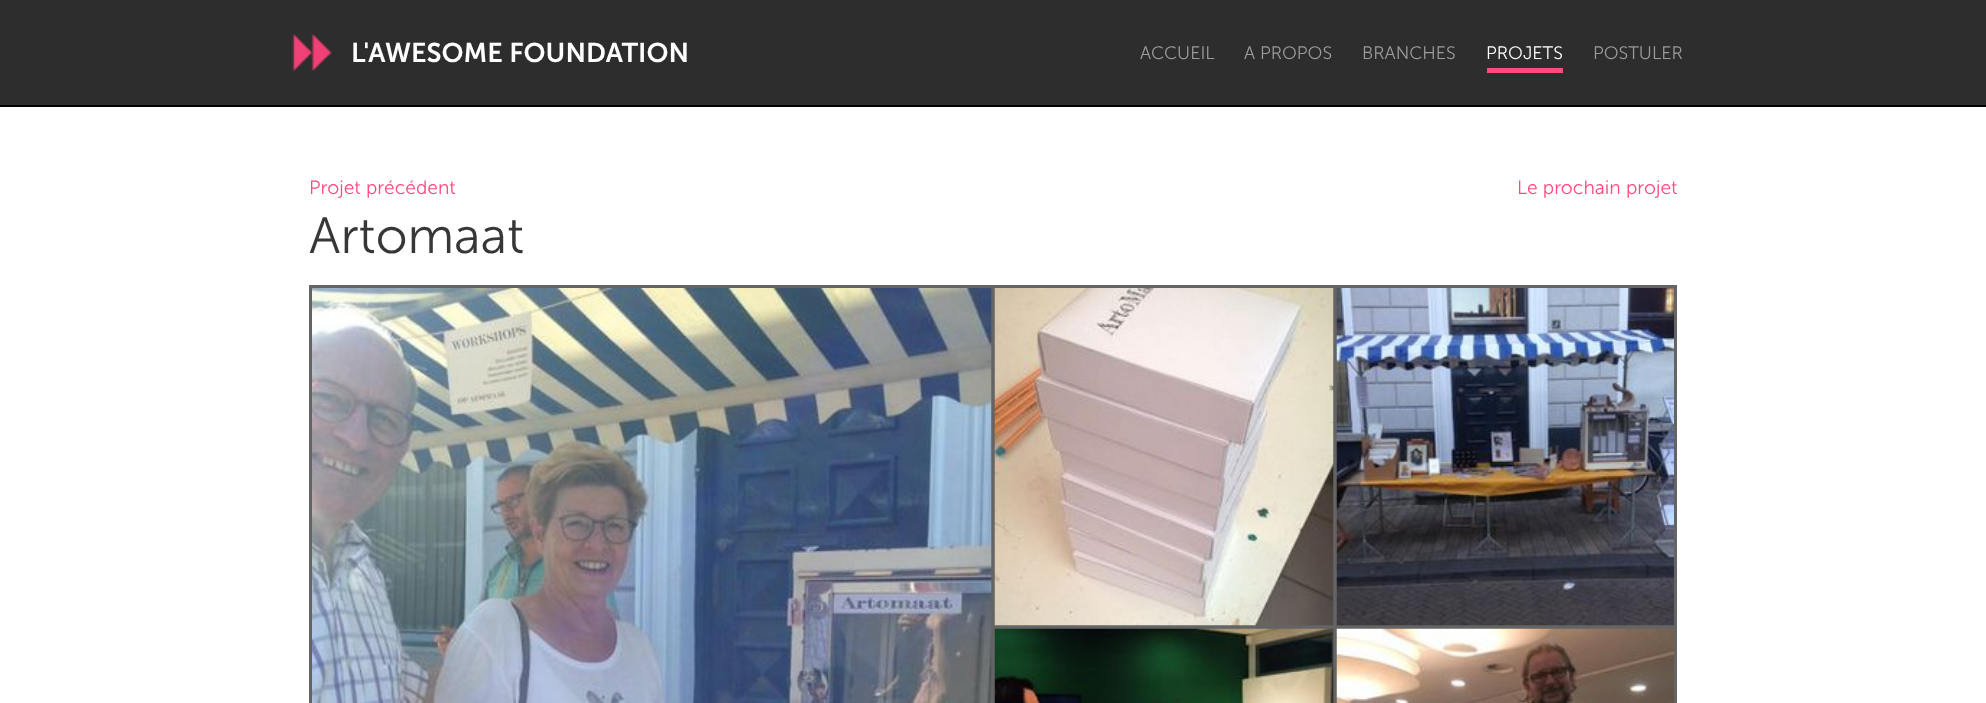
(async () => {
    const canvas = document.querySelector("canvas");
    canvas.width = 1986;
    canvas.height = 703;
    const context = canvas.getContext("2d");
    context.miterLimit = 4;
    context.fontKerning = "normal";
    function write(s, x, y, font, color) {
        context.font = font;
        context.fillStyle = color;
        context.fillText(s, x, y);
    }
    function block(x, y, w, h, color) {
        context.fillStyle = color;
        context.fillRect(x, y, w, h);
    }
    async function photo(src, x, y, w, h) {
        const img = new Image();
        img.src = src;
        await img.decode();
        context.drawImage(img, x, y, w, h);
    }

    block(0, 0, 1986, 703, "rgb(255, 255, 255)");
    block(0, 0, 1986, 105, "rgb(45, 45, 45)");
    block(0, 105, 1986, 2, "rgb(0, 0, 0)");
    await photo("media/1.png", 292, 34, 40, 37);
    write("L'AWESOME FOUNDATION", 351, 62, "600 27px 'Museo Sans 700'", "rgb(255, 255, 255)");
    write("ACCUEIL", 1140, 59, "300 18px 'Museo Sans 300'", "rgb(155, 155, 155)");
    write("A PROPOS", 1244, 59, "300 18px 'Museo Sans 300'", "rgb(155, 155, 155)");
    write("BRANCHES", 1362, 59, "300 18px 'Museo Sans 300'", "rgb(155, 155, 155)");
    block(1487, 68, 76, 5, "rgb(255, 75, 126)");
    write("PROJETS", 1486, 59, "300 18px 'Museo Sans 300'", "rgb(255, 255, 255)");
    write("POSTULER", 1593, 59, "300 18px 'Museo Sans 300'", "rgb(155, 155, 155)");
    write("Projet précédent", 309, 194, "300 19.25px 'Museo Sans 300'", "rgb(255, 75, 126)");
    write("Le prochain projet", 1517, 194, "300 19.25px 'Museo Sans 300'", "rgb(255, 75, 126)");
    write("Artomaat", 309, 253, "300 51px 'Museo Sans 300'", "rgb(55, 55, 55)");
    block(309, 285, 1368, 418, "rgb(100, 100, 100)");
    await photo("media/2.png", 312, 288, 680, 415);
    await photo("media/3.png", 994, 288, 340, 338);
    await photo("media/4.png", 1336, 288, 338, 338);
    await photo("media/5.png", 994, 628, 340, 75);
    await photo("media/6.png", 1336, 628, 338, 75);
})();
